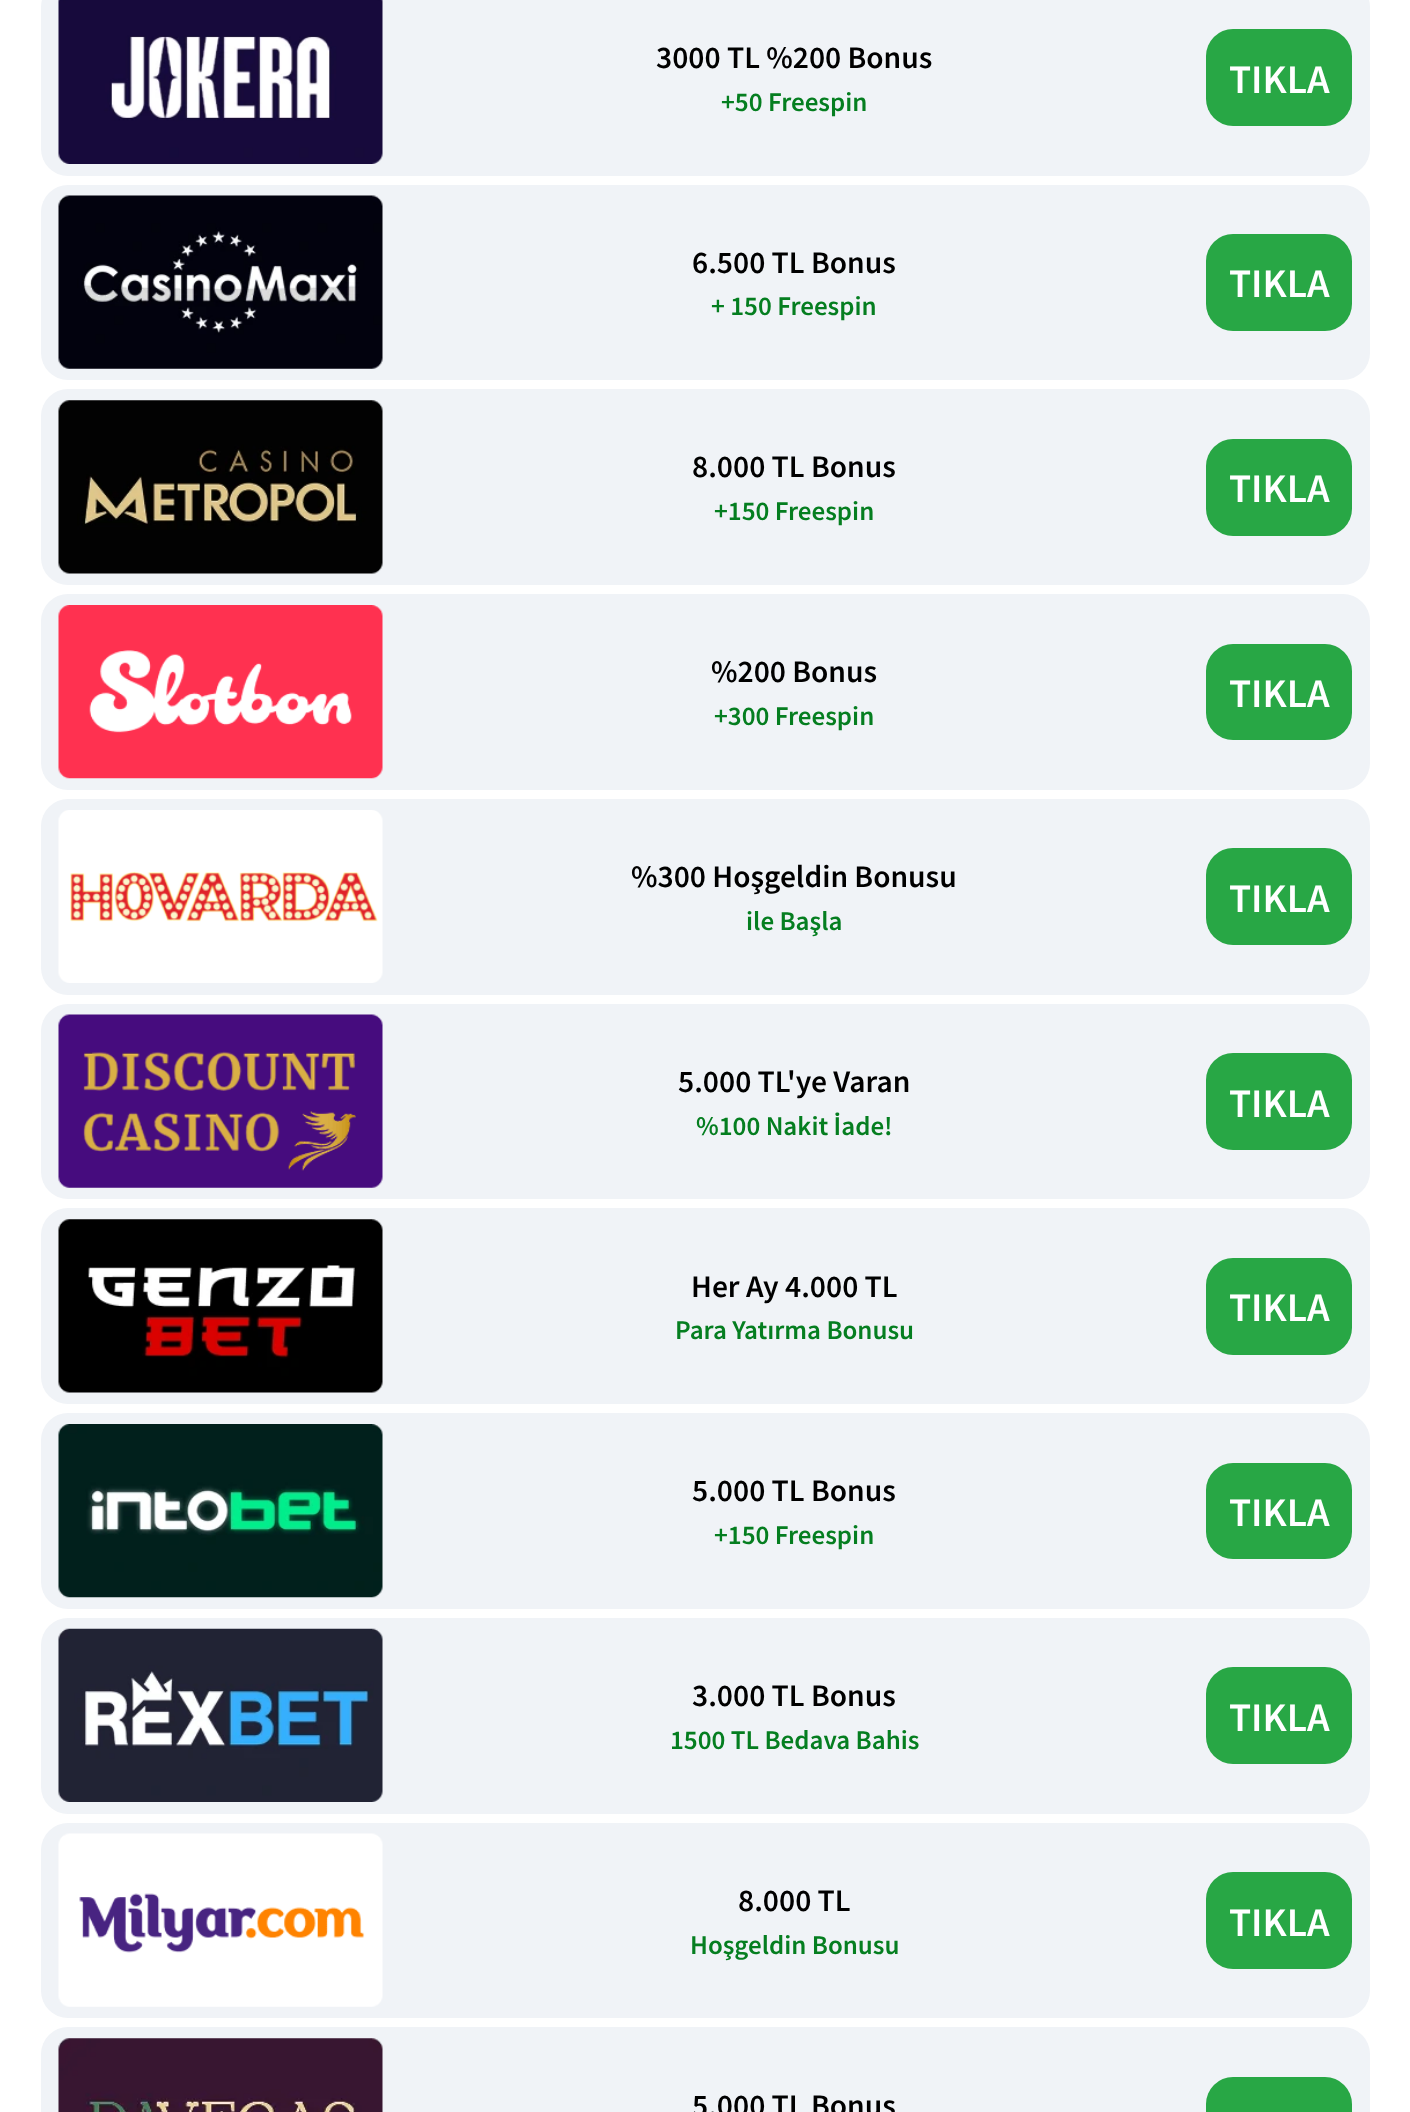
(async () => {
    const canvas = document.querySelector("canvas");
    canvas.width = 1410;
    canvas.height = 2112;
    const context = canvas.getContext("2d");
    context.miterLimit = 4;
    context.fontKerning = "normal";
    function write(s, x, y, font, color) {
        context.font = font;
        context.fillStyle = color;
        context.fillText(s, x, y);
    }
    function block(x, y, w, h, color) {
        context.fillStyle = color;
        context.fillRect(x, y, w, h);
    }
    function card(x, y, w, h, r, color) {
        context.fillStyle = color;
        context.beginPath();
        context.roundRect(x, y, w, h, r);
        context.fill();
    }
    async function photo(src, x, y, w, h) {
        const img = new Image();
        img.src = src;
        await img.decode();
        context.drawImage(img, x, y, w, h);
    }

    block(0, 0, 1410, 2112, "rgb(255, 255, 255)");
    card(41, -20, 1329, 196, 27, "rgb(240, 243, 247)");
    await photo("media/1.png", 58, 0, 325, 164);
    write("3000 TL %200 Bonus", 656, 68, "600 31.5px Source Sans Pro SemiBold", "rgb(0, 0, 0)");
    write("+50 Freespin", 721, 111, "600 27px Source Sans Pro SemiBold", "rgb(5, 126, 32)");
    card(1206, 29, 146, 97, 27, "rgb(40, 167, 69)");
    write("TIKLA", 1229, 93, "600 40.5px Source Sans Pro SemiBold", "rgb(255, 255, 255)");
    card(41, 185, 1329, 195, 27, "rgb(240, 243, 247)");
    await photo("media/2.png", 58, 195, 325, 174);
    write("6.500 TL Bonus", 692, 273, "600 31.5px Source Sans Pro SemiBold", "rgb(0, 0, 0)");
    write("+ 150 Freespin", 711, 315, "600 27px Source Sans Pro SemiBold", "rgb(5, 126, 32)");
    card(1206, 234, 146, 97, 27, "rgb(40, 167, 69)");
    write("TIKLA", 1229, 297, "600 40.5px Source Sans Pro SemiBold", "rgb(255, 255, 255)");
    card(41, 389, 1329, 196, 27, "rgb(240, 243, 247)");
    await photo("media/3.png", 58, 400, 325, 174);
    write("8.000 TL Bonus", 692, 477, "600 31.5px Source Sans Pro SemiBold", "rgb(0, 0, 0)");
    write("+150 Freespin", 714, 520, "600 27px Source Sans Pro SemiBold", "rgb(5, 126, 32)");
    card(1206, 439, 146, 97, 27, "rgb(40, 167, 69)");
    write("TIKLA", 1229, 502, "600 40.5px Source Sans Pro SemiBold", "rgb(255, 255, 255)");
    card(41, 594, 1329, 196, 27, "rgb(240, 243, 247)");
    await photo("media/4.png", 58, 605, 325, 174);
    write("%200 Bonus", 711, 682, "600 31.5px Source Sans Pro SemiBold", "rgb(0, 0, 0)");
    write("+300 Freespin", 714, 725, "600 27px Source Sans Pro SemiBold", "rgb(5, 126, 32)");
    card(1206, 644, 146, 96, 27, "rgb(40, 167, 69)");
    write("TIKLA", 1229, 707, "600 40.5px Source Sans Pro SemiBold", "rgb(255, 255, 255)");
    card(41, 799, 1329, 196, 27, "rgb(240, 243, 247)");
    await photo("media/5.png", 58, 810, 325, 173);
    write("%300 Hoşgeldin Bonusu", 631, 887, "600 31.5px Source Sans Pro SemiBold", "rgb(0, 0, 0)");
    write("ile Başla", 746, 930, "600 27px Source Sans Pro SemiBold", "rgb(5, 126, 32)");
    card(1206, 848, 146, 97, 27, "rgb(40, 167, 69)");
    write("TIKLA", 1229, 912, "600 40.5px Source Sans Pro SemiBold", "rgb(255, 255, 255)");
    card(41, 1004, 1329, 195, 27, "rgb(240, 243, 247)");
    await photo("media/6.png", 58, 1014, 325, 174);
    write("5.000 TL'ye Varan", 678, 1092, "600 31.5px Source Sans Pro SemiBold", "rgb(0, 0, 0)");
    write("%100 Nakit İade!", 696, 1135, "600 27px Source Sans Pro SemiBold", "rgb(5, 126, 32)");
    card(1206, 1053, 146, 97, 27, "rgb(40, 167, 69)");
    write("TIKLA", 1229, 1117, "600 40.5px Source Sans Pro SemiBold", "rgb(255, 255, 255)");
    card(41, 1208, 1329, 196, 27, "rgb(240, 243, 247)");
    await photo("media/7.png", 58, 1219, 325, 174);
    write("Her Ay 4.000 TL", 691, 1297, "600 31.5px Source Sans Pro SemiBold", "rgb(0, 0, 0)");
    write("Para Yatırma Bonusu", 675, 1339, "600 27px Source Sans Pro SemiBold", "rgb(5, 126, 32)");
    card(1206, 1258, 146, 97, 27, "rgb(40, 167, 69)");
    write("TIKLA", 1229, 1321, "600 40.5px Source Sans Pro SemiBold", "rgb(255, 255, 255)");
    card(41, 1413, 1329, 196, 27, "rgb(240, 243, 247)");
    await photo("media/8.png", 58, 1424, 325, 174);
    write("5.000 TL Bonus", 692, 1501, "600 31.5px Source Sans Pro SemiBold", "rgb(0, 0, 0)");
    write("+150 Freespin", 714, 1544, "600 27px Source Sans Pro SemiBold", "rgb(5, 126, 32)");
    card(1206, 1463, 146, 96, 27, "rgb(40, 167, 69)");
    write("TIKLA", 1229, 1526, "600 40.5px Source Sans Pro SemiBold", "rgb(255, 255, 255)");
    card(41, 1618, 1329, 196, 27, "rgb(240, 243, 247)");
    await photo("media/9.png", 58, 1628, 325, 174);
    write("3.000 TL Bonus", 692, 1706, "600 31.5px Source Sans Pro SemiBold", "rgb(0, 0, 0)");
    write("1500 TL Bedava Bahis", 670, 1749, "600 27px Source Sans Pro SemiBold", "rgb(5, 126, 32)");
    card(1206, 1667, 146, 97, 27, "rgb(40, 167, 69)");
    write("TIKLA", 1229, 1731, "600 40.5px Source Sans Pro SemiBold", "rgb(255, 255, 255)");
    card(41, 1823, 1329, 195, 27, "rgb(240, 243, 247)");
    await photo("media/10.png", 58, 1833, 325, 174);
    write("8.000 TL", 738, 1911, "600 31.5px Source Sans Pro SemiBold", "rgb(0, 0, 0)");
    write("Hoşgeldin Bonusu", 690, 1954, "600 27px Source Sans Pro SemiBold", "rgb(5, 126, 32)");
    card(1206, 1872, 146, 97, 27, "rgb(40, 167, 69)");
    write("TIKLA", 1229, 1936, "600 40.5px Source Sans Pro SemiBold", "rgb(255, 255, 255)");
    card(41, 2027, 1329, 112, 27, "rgb(240, 243, 247)");
    await photo("media/11.png", 58, 2038, 325, 74);
    write("5.000 TL Bonus", 692, 2116, "600 31.5px Source Sans Pro SemiBold", "rgb(0, 0, 0)");
    card(1206, 2077, 146, 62, 27, "rgb(40, 167, 69)");
})();
